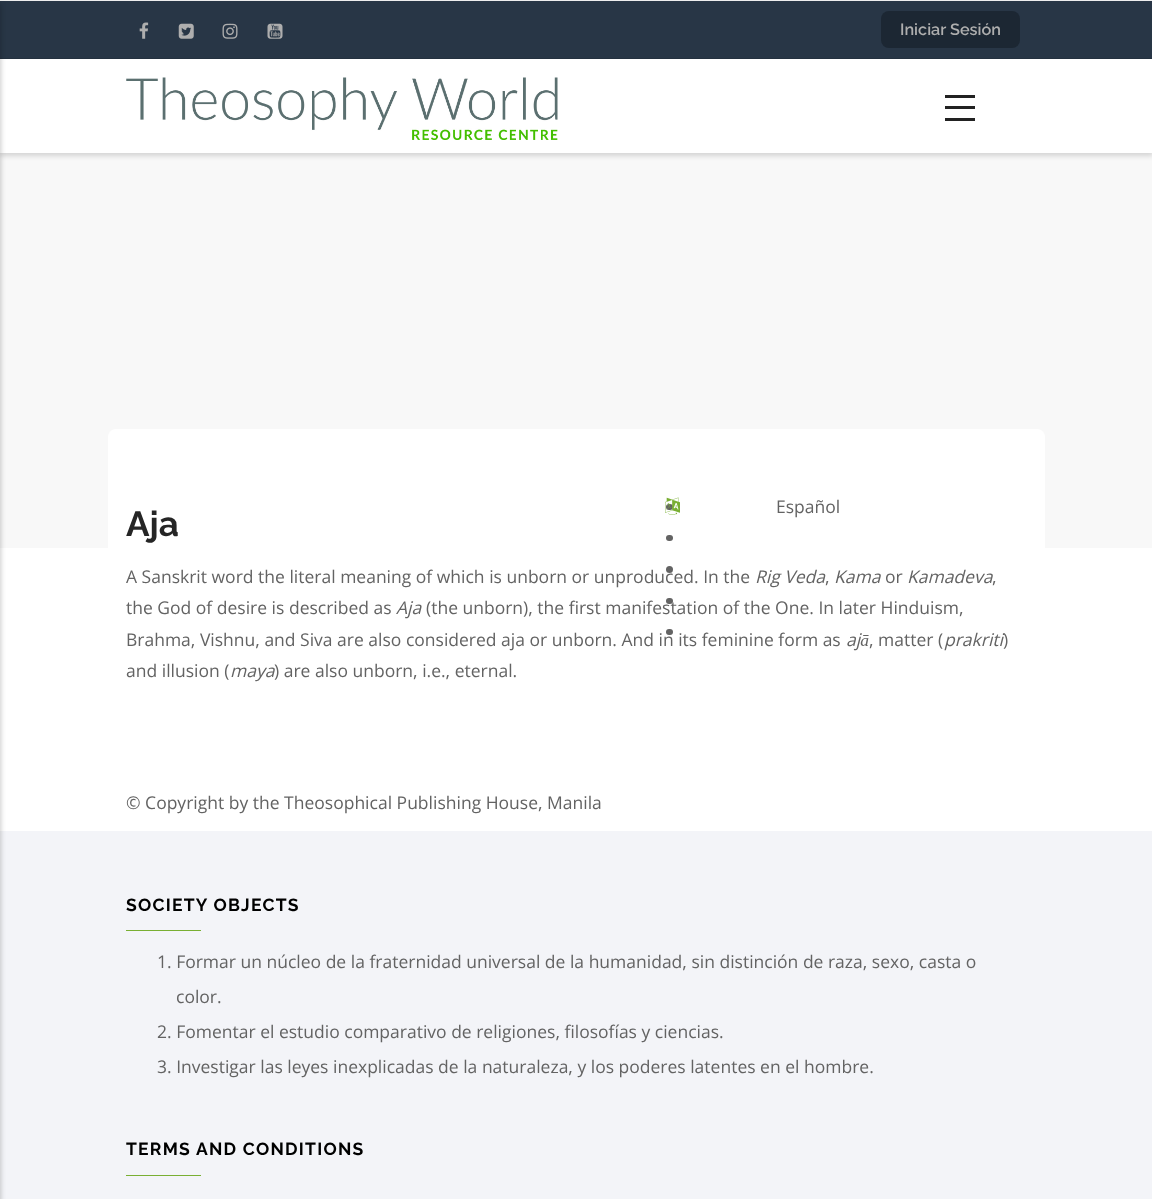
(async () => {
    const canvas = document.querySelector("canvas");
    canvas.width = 1152;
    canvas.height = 1199;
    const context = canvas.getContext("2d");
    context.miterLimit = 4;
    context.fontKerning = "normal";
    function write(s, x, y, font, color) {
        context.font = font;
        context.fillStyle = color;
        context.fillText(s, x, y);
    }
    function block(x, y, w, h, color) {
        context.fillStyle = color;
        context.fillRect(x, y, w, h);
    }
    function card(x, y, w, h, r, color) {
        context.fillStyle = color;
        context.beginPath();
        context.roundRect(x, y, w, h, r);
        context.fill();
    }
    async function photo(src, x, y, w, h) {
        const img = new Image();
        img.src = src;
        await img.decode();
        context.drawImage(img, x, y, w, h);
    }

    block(0, 0, 1152, 1199, "rgb(239, 239, 239)");
    block(0, 548, 1152, 283, "rgb(255, 255, 255)");
    block(0, 153, 1152, 395, "rgb(248, 248, 248)");
    context.fillStyle = "rgba(0, 0, 0, 0.14)";
    context.filter = "blur(2.5px)";
    context.beginPath();
    context.rect(0, 5, 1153, 151);
    context.fill();
    context.filter = "none";
    block(0, 59, 1152, 94, "rgb(255, 255, 255)");
    block(0, 1, 1152, 57, "rgb(40, 54, 70)");
    block(0, 58, 1152, 1, "rgb(36, 49, 63)");
    block(0, 831, 1152, 368, "rgb(243, 244, 248)");
    context.fillStyle = "rgba(0, 0, 0, 0.2)";
    context.filter = "blur(2.5px)";
    context.beginPath();
    context.rect(-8, 4, 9, 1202);
    context.fill();
    context.filter = "none";
    block(945, 95, 30, 3, "rgb(34, 34, 34)");
    block(945, 106, 30, 3, "rgb(34, 34, 34)");
    block(945, 118, 30, 3, "rgb(34, 34, 34)");
    await photo("media/1.png", 126, 77, 432, 63);
    await photo("media/2.png", 139, 22, 10, 17);
    await photo("media/3.png", 178, 23, 16, 16);
    await photo("media/4.png", 222, 23, 16, 16);
    await photo("media/5.png", 267, 23, 16, 16);
    card(881, 11, 139, 37, 8, "rgb(28, 39, 51)");
    write("Iniciar Sesión", 900, 35, "600 16.25px Raleway", "rgb(174, 174, 174)");
    card(108, 429, 937, 402, 8, "rgb(255, 255, 255)");
    card(666, 504, 7, 6, 3, "rgb(99, 99, 99)");
    await photo("media/6.png", 665, 497, 15, 18);
    write("Español", 776, 513, "17.5px Open Sans", "rgb(99, 99, 99)");
    card(666, 535, 7, 6, 3, "rgb(99, 99, 99)");
    context.beginPath();
    context.arc(669.5, 569.5, 3.5, 0, Math.PI * 2);
    context.fill();
    card(666, 598, 7, 6, 3, "rgb(99, 99, 99)");
    card(666, 629, 7, 6, 3, "rgb(99, 99, 99)");
    write("Aja", 126, 536, "bold 35px Raleway", "rgb(37, 37, 37)");
    write("A Sanskrit word the literal meaning of which is unborn or unproduced. In the", 126, 583, "17.5px Open Sans", "rgb(99, 99, 99)");
    write("Rig Veda", 755, 583, "italic 17.5px Open Sans", "rgb(99, 99, 99)");
    write(",", 825, 583, "17.5px Open Sans", "rgb(99, 99, 99)");
    write("Kama", 834, 583, "italic 17.5px Open Sans", "rgb(99, 99, 99)");
    write("or", 885, 583, "17.5px Open Sans", "rgb(99, 99, 99)");
    write("Kamadeva", 907, 583, "italic 17.5px Open Sans", "rgb(99, 99, 99)");
    write(",", 992, 583, "17.5px Open Sans", "rgb(99, 99, 99)");
    write("the God of desire is described as", 126, 614, "17.5px Open Sans", "rgb(99, 99, 99)");
    write("Aja", 396, 614, "italic 17.5px Open Sans", "rgb(99, 99, 99)");
    write("(the unborn), the first manifestation of the One. In later Hinduism,", 426, 614, "17.5px Open Sans", "rgb(99, 99, 99)");
    write("Brahma, Vishnu, and Siva are also considered aja or unborn. And in its feminine form as", 126, 646, "17.5px Open Sans", "rgb(99, 99, 99)");
    write("ajā", 846, 646, "italic 17.5px Open Sans", "rgb(99, 99, 99)");
    write(", matter (", 869, 646, "17.5px Open Sans", "rgb(99, 99, 99)");
    write("prakriti", 944, 646, "italic 17.5px Open Sans", "rgb(99, 99, 99)");
    write(")", 1003, 646, "17.5px Open Sans", "rgb(99, 99, 99)");
    write("and illusion (", 126, 677, "17.5px Open Sans", "rgb(99, 99, 99)");
    write("maya", 230, 677, "italic 17.5px Open Sans", "rgb(99, 99, 99)");
    write(") are also unborn, i.e., eternal.", 274, 677, "17.5px Open Sans", "rgb(99, 99, 99)");
    write("© Copyright by the Theosophical Publishing House, Manila", 126, 809, "17.5px Open Sans", "rgb(99, 99, 99)");
    context.letterSpacing = "1.25px";
    write("SOCIETY OBJECTS", 126, 911, "bold 17.5px Raleway", "rgb(0, 0, 0)");
    block(126, 930, 75, 1, "rgb(121, 175, 51)");
    context.letterSpacing = "0px";
    write("1. Formar un núcleo de la fraternidad universal de la humanidad, sin distinción de raza, sexo, casta o", 157, 968, "17.5px Open Sans", "rgb(99, 99, 99)");
    write("color.", 176, 1003, "17.5px Open Sans", "rgb(99, 99, 99)");
    write("2. Fomentar el estudio comparativo de religiones, filosofías y ciencias.", 157, 1038, "17.5px Open Sans", "rgb(99, 99, 99)");
    write("3. Investigar las leyes inexplicadas de la naturaleza, y los poderes latentes en el hombre.", 157, 1073, "17.5px Open Sans", "rgb(99, 99, 99)");
    context.letterSpacing = "1.25px";
    write("TERMS AND CONDITIONS", 126, 1155, "bold 17.5px Raleway", "rgb(0, 0, 0)");
    block(126, 1175, 75, 1, "rgb(121, 175, 51)");
})();
